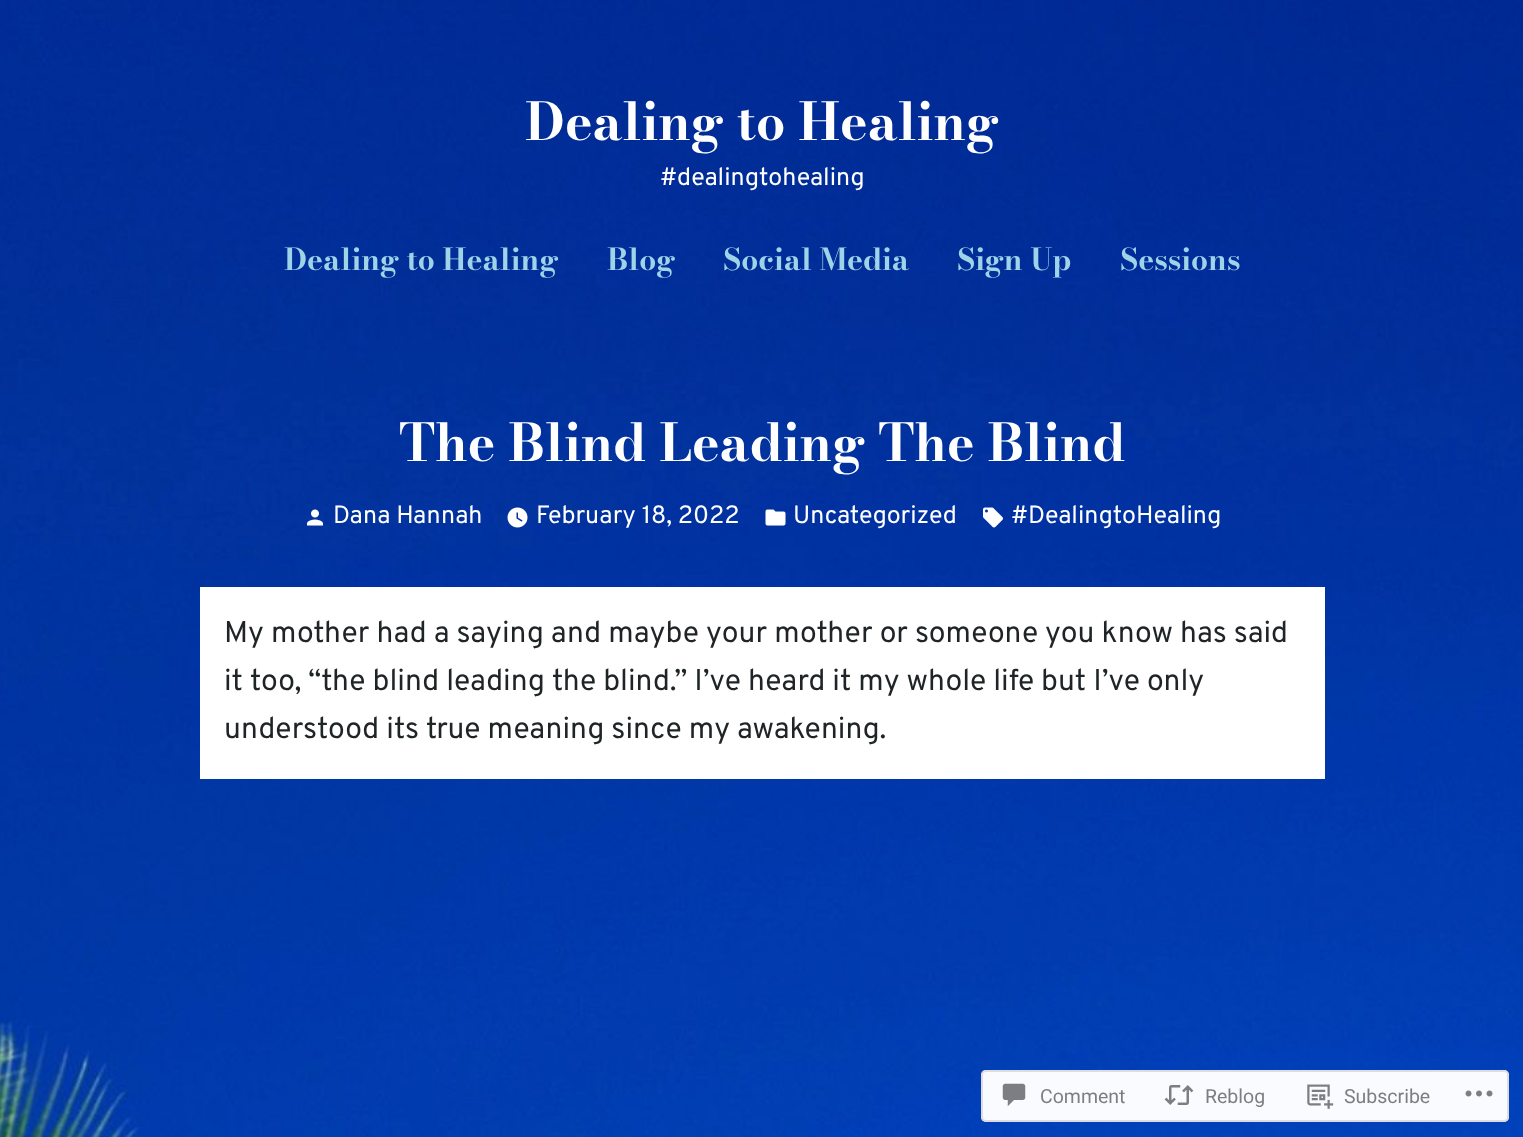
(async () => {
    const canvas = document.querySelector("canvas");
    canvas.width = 1523;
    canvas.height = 1137;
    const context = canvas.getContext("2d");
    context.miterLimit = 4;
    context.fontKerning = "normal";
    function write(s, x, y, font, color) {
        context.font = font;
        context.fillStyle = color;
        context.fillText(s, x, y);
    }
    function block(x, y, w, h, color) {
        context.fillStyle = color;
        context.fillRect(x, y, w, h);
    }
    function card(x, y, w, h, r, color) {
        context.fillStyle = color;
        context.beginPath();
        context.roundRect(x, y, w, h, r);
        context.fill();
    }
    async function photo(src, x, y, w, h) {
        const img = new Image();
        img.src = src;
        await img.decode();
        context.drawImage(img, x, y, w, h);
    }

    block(0, 0, 1523, 1137, "rgb(255, 255, 255)");
    await photo("media/1.png", 0, 0, 1523, 1137);
    write("Dealing to Healing", 525, 140, "bold 51.8px Bodoni Moda", "rgb(255, 255, 255)");
    write("#dealingtohealing", 660, 185, "25px Overpass", "rgb(255, 255, 255)");
    write("Dealing to Healing", 284, 270, "bold 30px Bodoni Moda", "rgb(159, 211, 232)");
    write("Blog", 607, 270, "bold 30px Bodoni Moda", "rgb(159, 211, 232)");
    write("Social Media", 723, 270, "bold 30px Bodoni Moda", "rgb(159, 211, 232)");
    write("Sign Up", 957, 270, "bold 30px Bodoni Moda", "rgb(159, 211, 232)");
    write("Sessions", 1120, 270, "bold 30px Bodoni Moda", "rgb(159, 211, 232)");
    write("The Blind Leading The Blind", 399, 461, "bold 51.8px Bodoni Moda", "rgb(255, 255, 255)");
    await photo("media/2.png", 307, 509, 16, 17);
    write("Dana Hannah", 333, 523, "25px Overpass", "rgb(255, 255, 255)");
    await photo("media/3.png", 507, 507, 21, 21);
    write("February 18, 2022", 536, 523, "25px Overpass", "rgb(255, 255, 255)");
    await photo("media/4.png", 765, 509, 21, 17);
    write("Uncategorized", 793, 523, "25px Overpass", "rgb(255, 255, 255)");
    await photo("media/5.png", 983, 507, 20, 21);
    write("#DealingtoHealing", 1011, 523, "25px Overpass", "rgb(255, 255, 255)");
    block(200, 587, 1125, 192, "rgb(255, 255, 255)");
    write("My mother had a saying and maybe your mother or someone you know has said", 224, 642, "30px Overpass", "rgb(31, 37, 39)");
    write("it too, “the blind leading the blind.” I’ve heard it my whole life but I’ve only", 224, 690, "30px Overpass", "rgb(31, 37, 39)");
    write("understood its true meaning since my awakening.", 224, 738, "30px Overpass", "rgb(31, 37, 39)");
    card(981, 1070, 528, 52, 5, "rgba(255, 255, 255, 0.98)");
    context.beginPath();
    context.roundRect(982, 1071, 526, 50, 4);
    context.strokeStyle = "rgba(220, 220, 222, 0.98)";
    context.lineWidth = 2;
    context.stroke();
    await photo("media/6.png", 1002, 1083, 24, 24);
    write("Comment", 1040, 1103, "19.5px Roboto", "rgb(123, 127, 132)");
    await photo("media/7.png", 1164, 1085, 30, 20);
    write("Reblog", 1205, 1103, "19.5px Roboto", "rgb(123, 127, 132)");
    await photo("media/8.png", 1307, 1084, 27, 25);
    write("Subscribe", 1344, 1103, "19.5px Roboto", "rgb(123, 127, 132)");
    await photo("media/9.png", 1465, 1090, 28, 7);
})();
